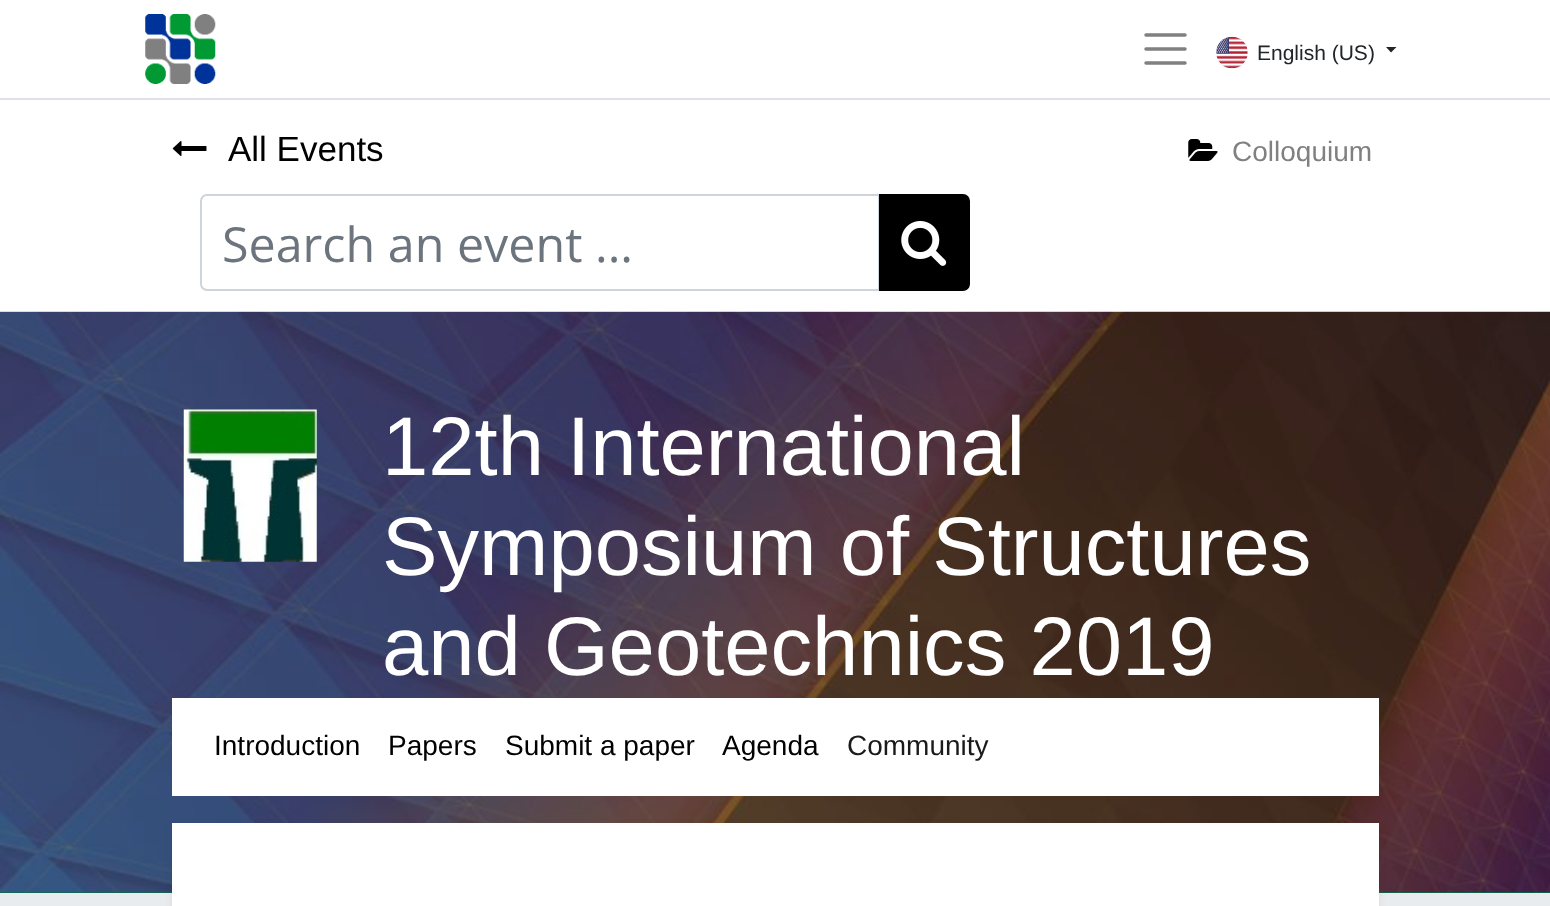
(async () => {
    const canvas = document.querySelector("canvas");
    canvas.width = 1550;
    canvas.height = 906;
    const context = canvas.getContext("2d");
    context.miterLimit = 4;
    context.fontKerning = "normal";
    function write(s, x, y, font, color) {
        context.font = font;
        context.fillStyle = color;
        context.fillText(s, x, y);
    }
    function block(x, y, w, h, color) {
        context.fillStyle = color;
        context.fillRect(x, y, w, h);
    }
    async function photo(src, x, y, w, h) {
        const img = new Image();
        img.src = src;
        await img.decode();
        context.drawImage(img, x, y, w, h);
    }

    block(0, 0, 1550, 906, "rgb(255, 255, 255)");
    await photo("media/1.png", 145, 14, 71, 70);
    context.beginPath();
    context.moveTo(1146, 35);
    context.lineTo(1185, 35);
    context.moveTo(1146, 49);
    context.lineTo(1185, 49);
    context.moveTo(1146, 63);
    context.lineTo(1185, 63);
    context.strokeStyle = "rgb(128, 128, 128)";
    context.lineWidth = 3.5;
    context.lineCap = "round";
    context.stroke();
    await photo("media/2.png", 1216, 36, 32, 33);
    write("English (US)", 1257, 60, "21px Liberation Sans", "rgb(33, 37, 41)");
    context.beginPath();
    context.moveTo(1386, 47);
    context.lineTo(1396.5, 47);
    context.lineTo(1391, 52.5);
    context.closePath();
    context.fill();
    block(0, 98, 1550, 2, "rgb(222, 226, 230)");
    await photo("media/3.png", 172, 141, 35, 15);
    write("All Events", 228, 161, "35px Liberation Sans", "rgb(0, 0, 0)");
    await photo("media/4.png", 1188, 139, 30, 22);
    write("Colloquium", 1232, 161, "28px Liberation Sans", "rgb(128, 128, 128)");
    context.beginPath();
    context.roundRect(201, 195, 678, 95, [6, 0, 0, 6]);
    context.strokeStyle = "rgb(206, 212, 218)";
    context.lineWidth = 2;
    context.stroke();
    write("Search an event ...", 222, 262, "48.4px Open Sans", "rgb(108, 117, 125)");
    context.fillStyle = "rgb(0, 0, 0)";
    context.beginPath();
    context.roundRect(880, 195, 89, 95, [0, 6, 6, 0]);
    context.fill();
    context.strokeStyle = "rgb(0, 0, 0)";
    context.stroke();
    await photo("media/5.png", 901, 221, 46, 45);
    block(0, 892, 1550, 1, "rgb(13, 171, 118)");
    await photo("media/6.png", 0, 311, 1550, 582);
    block(0, 312, 1550, 581, "rgba(0, 0, 0, 0.36)");
    await photo("media/7.png", 183, 409, 134, 153);
    write("12th International", 382, 475, "83.2px Liberation Sans", "rgb(255, 255, 255)");
    write("Symposium of Structures", 382, 575, "83.2px Liberation Sans", "rgb(255, 255, 255)");
    write("and Geotechnics 2019", 382, 675, "83.2px Liberation Sans", "rgb(255, 255, 255)");
    block(172, 698, 1207, 98, "rgb(255, 255, 255)");
    write("Introduction", 214, 755, "28px Liberation Sans", "rgb(0, 0, 0)");
    write("Papers", 388, 755, "28px Liberation Sans", "rgb(0, 0, 0)");
    write("Submit a paper", 505, 755, "28px Liberation Sans", "rgb(0, 0, 0)");
    write("Agenda", 722, 755, "28px Liberation Sans", "rgb(0, 0, 0)");
    write("Community", 847, 755, "28px Liberation Sans", "rgb(26, 26, 26)");
    block(0, 893, 1550, 13, "rgb(233, 236, 239)");
    context.fillStyle = "rgba(0, 0, 0, 0.07)";
    context.filter = "blur(3.5px)";
    context.beginPath();
    context.rect(172, 826, 1207, 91);
    context.fill();
    context.filter = "none";
    block(172, 823, 1207, 83, "rgb(255, 255, 255)");
})();
